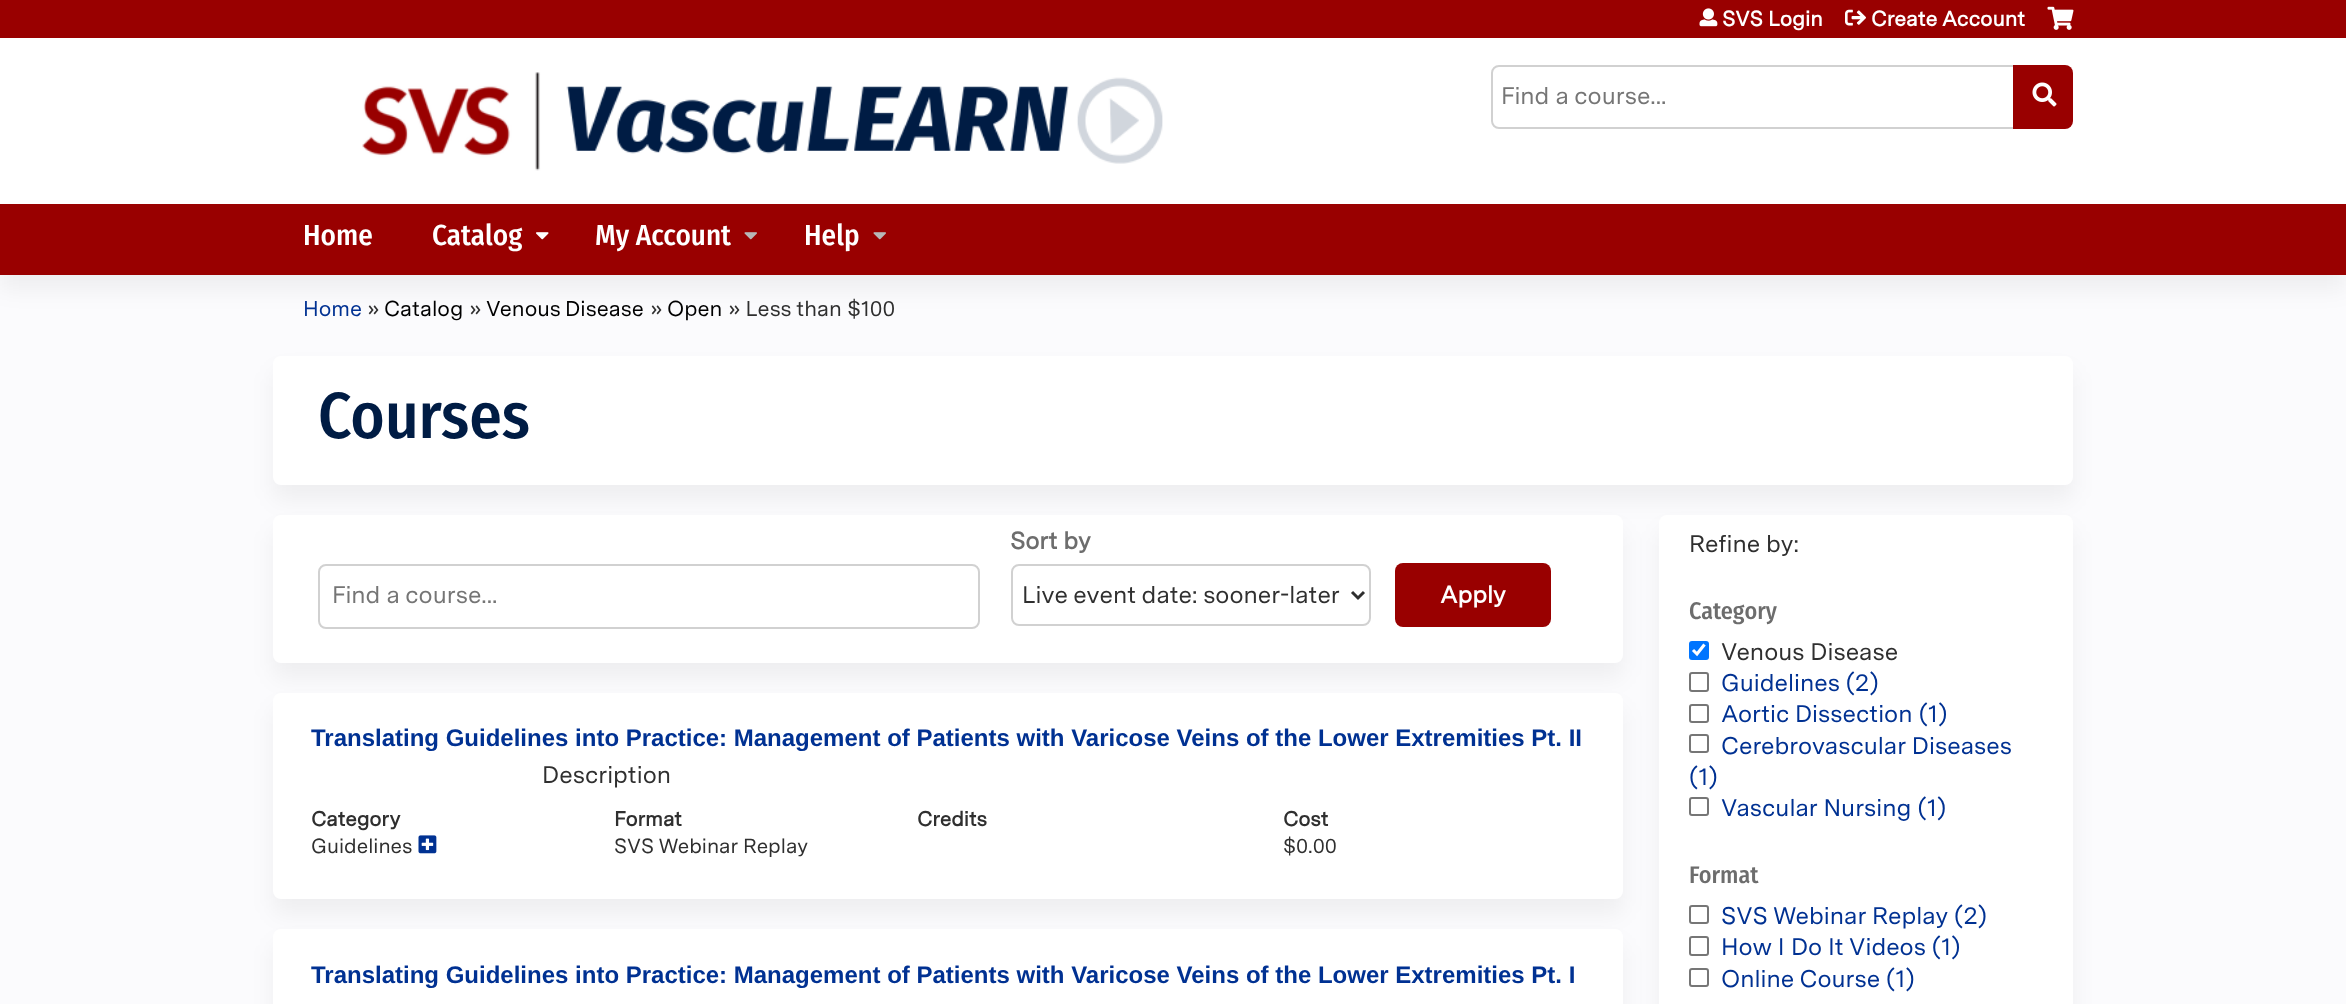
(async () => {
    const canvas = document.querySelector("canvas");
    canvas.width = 2346;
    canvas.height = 1004;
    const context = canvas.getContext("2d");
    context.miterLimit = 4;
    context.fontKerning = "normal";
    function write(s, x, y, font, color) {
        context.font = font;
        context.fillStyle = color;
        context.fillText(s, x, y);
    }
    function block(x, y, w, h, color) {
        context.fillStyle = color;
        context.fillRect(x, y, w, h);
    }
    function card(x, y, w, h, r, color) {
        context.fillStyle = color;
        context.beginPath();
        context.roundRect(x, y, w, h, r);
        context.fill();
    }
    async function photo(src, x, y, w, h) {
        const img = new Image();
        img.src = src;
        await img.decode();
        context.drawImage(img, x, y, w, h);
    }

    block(0, 0, 2346, 1004, "rgb(251, 251, 253)");
    block(0, 38, 2346, 166, "rgb(255, 255, 255)");
    block(0, 0, 2346, 38, "rgb(153, 0, 0)");
    await photo("media/1.png", 1699, 8, 19, 19);
    write("SVS Login", 1722, 26, "bold 21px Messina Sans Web", "rgb(255, 255, 255)");
    await photo("media/2.png", 1845, 9, 21, 17);
    write("Create Account", 1871, 26, "bold 21px Messina Sans Web", "rgb(255, 255, 255)");
    await photo("media/3.png", 2047, 6, 27, 24);
    context.beginPath();
    context.roundRect(1492, 66, 522, 62, [7, 0, 0, 7]);
    context.strokeStyle = "rgb(209, 209, 209)";
    context.lineWidth = 2;
    context.stroke();
    context.fillStyle = "rgb(153, 0, 0)";
    context.beginPath();
    context.roundRect(2013, 65, 60, 64, [0, 8, 8, 0]);
    context.fill();
    write("Find a course...", 1501, 104, "24px Messina Sans Web", "rgb(117, 117, 117)");
    await photo("media/4.png", 2032, 82, 25, 25);
    await photo("media/5.png", 362, 72, 801, 99);
    context.fillStyle = "rgba(0, 0, 0, 0.05)";
    context.filter = "blur(11px)";
    context.beginPath();
    context.rect(0, 219, 2346, 71);
    context.fill();
    context.filter = "none";
    block(0, 204, 2346, 71, "rgb(153, 0, 0)");
    write("Home", 303, 245, "500 29px Fira Sans Condensed", "rgb(255, 255, 255)");
    write("Catalog", 432, 245, "500 29px Fira Sans Condensed", "rgb(255, 255, 255)");
    await photo("media/6.png", 536, 232, 13, 8);
    write("My Account", 595, 245, "500 29px Fira Sans Condensed", "rgb(255, 255, 255)");
    await photo("media/7.png", 744, 232, 13, 8);
    write("Help", 804, 245, "500 29px Fira Sans Condensed", "rgb(255, 255, 255)");
    await photo("media/7.png", 873, 232, 13, 8);
    write("Home", 303, 316, "21.5px Messina Sans Web", "rgb(0, 49, 146)");
    write("»", 367, 316, "21.5px Messina Sans Web", "rgb(47, 47, 47)");
    write("Catalog", 384, 316, "21.5px Messina Sans Web", "rgb(0, 0, 0)");
    write("»", 469, 316, "21.5px Messina Sans Web", "rgb(47, 47, 47)");
    context.wordSpacing = "-1px";
    write("Venous Disease", 486, 316, "21.5px Messina Sans Web", "rgb(0, 0, 0)");
    context.wordSpacing = "0px";
    write("»", 650, 316, "21.5px Messina Sans Web", "rgb(47, 47, 47)");
    write("Open", 667, 316, "21.5px Messina Sans Web", "rgb(0, 0, 0)");
    write("» Less than $100", 728, 316, "21.5px Messina Sans Web", "rgb(47, 47, 47)");
    context.fillStyle = "rgba(0, 0, 0, 0.05)";
    context.filter = "blur(11px)";
    context.beginPath();
    context.roundRect(273, 371, 1800, 129, 8);
    context.fill();
    context.filter = "none";
    card(273, 356, 1800, 129, 8, "rgb(255, 255, 255)");
    write("Courses", 318, 438, "500 65px Fira Sans Condensed", "rgb(0, 28, 68)");
    context.fillStyle = "rgba(0, 0, 0, 0.05)";
    context.filter = "blur(11px)";
    context.beginPath();
    context.roundRect(273, 530, 1350, 148, 8);
    context.fill();
    context.filter = "none";
    card(273, 515, 1350, 148, 8, "rgb(255, 255, 255)");
    context.beginPath();
    context.roundRect(319, 565, 660, 63, 7);
    context.stroke();
    write("Find a course...", 332, 603, "24px Messina Sans Web", "rgb(117, 117, 117)");
    write("Sort by", 1010, 549, "bold 24px Messina Sans Web", "rgb(109, 109, 109)");
    context.beginPath();
    context.roundRect(1012, 565, 358, 60, 7);
    context.stroke();
    context.beginPath();
    context.moveTo(1352, 592);
    context.lineTo(1358, 598);
    context.lineTo(1364, 592);
    context.strokeStyle = "rgb(47, 47, 47)";
    context.lineWidth = 3;
    context.stroke();
    write("Live event date: sooner-later", 1022, 603, "24px Messina Sans Web", "rgb(47, 47, 47)");
    card(1395, 563, 156, 64, 8, "rgb(153, 0, 0)");
    write("Apply", 1440, 603, "bold 24px Messina Sans Web", "rgb(255, 255, 255)");
    context.fillStyle = "rgba(0, 0, 0, 0.05)";
    context.filter = "blur(11px)";
    context.beginPath();
    context.roundRect(273, 708, 1350, 206, 8);
    context.fill();
    context.filter = "none";
    card(273, 693, 1350, 206, 8, "rgb(255, 255, 255)");
    write("Translating Guidelines into Practice: Management of Patients with Varicose Veins of the Lower Extremities Pt. II", 311, 746, "bold 24px Liberation Sans", "rgb(0, 49, 146)");
    write("Description", 542, 783, "24px Messina Sans Web", "rgb(47, 47, 47)");
    write("Category", 311, 826, "bold 20.5px Messina Sans Web", "rgb(47, 47, 47)");
    write("Guidelines", 311, 853, "20.5px Messina Sans Web", "rgb(47, 47, 47)");
    await photo("media/8.png", 418, 835, 19, 19);
    write("Format", 614, 826, "bold 20.5px Messina Sans Web", "rgb(47, 47, 47)");
    write("SVS Webinar Replay", 614, 853, "20.5px Messina Sans Web", "rgb(47, 47, 47)");
    write("Credits", 917, 826, "bold 20.5px Messina Sans Web", "rgb(47, 47, 47)");
    write("Cost", 1283, 826, "bold 20.5px Messina Sans Web", "rgb(47, 47, 47)");
    write("$0.00", 1283, 853, "20.5px Messina Sans Web", "rgb(47, 47, 47)");
    context.fillStyle = "rgba(0, 0, 0, 0.05)";
    context.filter = "blur(11px)";
    context.beginPath();
    context.roundRect(273, 944, 1350, 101, 8);
    context.fill();
    context.filter = "none";
    card(273, 929, 1350, 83, 8, "rgb(255, 255, 255)");
    write("Translating Guidelines into Practice: Management of Patients with Varicose Veins of the Lower Extremities Pt. I", 311, 983, "bold 24px Liberation Sans", "rgb(0, 49, 146)");
    context.fillStyle = "rgba(0, 0, 0, 0.05)";
    context.filter = "blur(11px)";
    context.beginPath();
    context.roundRect(1659, 530, 414, 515, 8);
    context.fill();
    context.filter = "none";
    card(1659, 515, 414, 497, 8, "rgb(255, 255, 255)");
    write("Refine by:", 1689, 552, "24px Messina Sans Web", "rgb(47, 47, 47)");
    write("Category", 1689, 619, "500 24px Fira Sans Condensed", "rgb(109, 109, 109)");
    card(1689, 641, 20, 19, 3, "rgb(0, 117, 255)");
    context.beginPath();
    context.moveTo(1693, 650);
    context.lineTo(1697, 654);
    context.lineTo(1704.5, 644.5);
    context.strokeStyle = "rgb(255, 255, 255)";
    context.lineWidth = 3.1;
    context.stroke();
    write("Venous Disease", 1721, 660, "24px Messina Sans Web", "rgb(47, 47, 47)");
    context.beginPath();
    context.roundRect(1690, 673, 18, 18, 2);
    context.strokeStyle = "rgb(118, 118, 118)";
    context.lineWidth = 2;
    context.stroke();
    write("Guidelines (2)", 1721, 691, "24px Messina Sans Web", "rgb(0, 49, 146)");
    context.beginPath();
    context.roundRect(1690, 705, 18, 17, 2);
    context.stroke();
    write("Aortic Dissection (1)", 1721, 722, "24px Messina Sans Web", "rgb(0, 49, 146)");
    context.beginPath();
    context.roundRect(1690, 735, 18, 17, 2);
    context.stroke();
    write("Cerebrovascular Diseases", 1721, 754, "24px Messina Sans Web", "rgb(0, 49, 146)");
    write("(1)", 1689, 785, "24px Messina Sans Web", "rgb(0, 49, 146)");
    context.beginPath();
    context.roundRect(1690, 798, 18, 17, 2);
    context.stroke();
    write("Vascular Nursing (1)", 1721, 816, "24px Messina Sans Web", "rgb(0, 49, 146)");
    write("Format", 1689, 883, "500 24px Fira Sans Condensed", "rgb(109, 109, 109)");
    context.beginPath();
    context.roundRect(1690, 906, 18, 17, 2);
    context.stroke();
    write("SVS Webinar Replay (2)", 1721, 924, "24px Messina Sans Web", "rgb(0, 49, 146)");
    context.beginPath();
    context.roundRect(1690, 937, 18, 18, 2);
    context.stroke();
    write("How I Do It Videos (1)", 1721, 955, "24px Messina Sans Web", "rgb(0, 49, 146)");
    context.beginPath();
    context.roundRect(1690, 969, 18, 17, 2);
    context.stroke();
    write("Online Course (1)", 1721, 987, "24px Messina Sans Web", "rgb(0, 49, 146)");
})();
